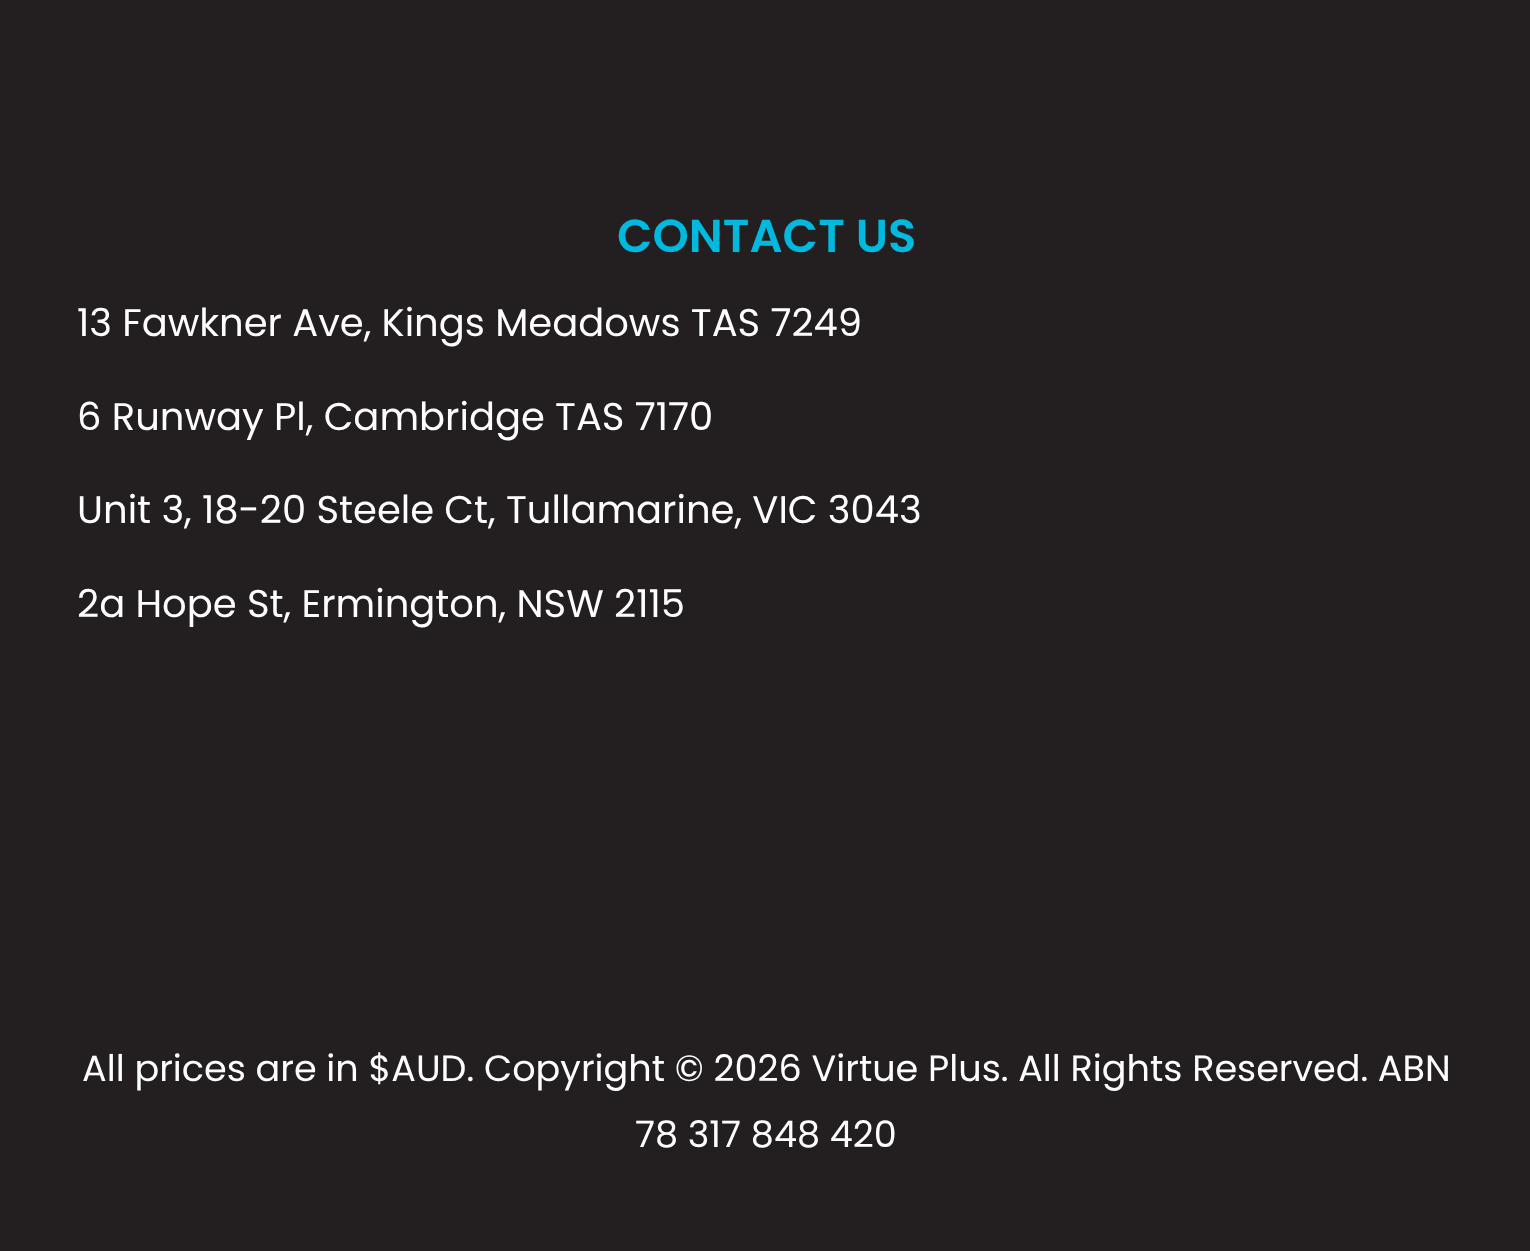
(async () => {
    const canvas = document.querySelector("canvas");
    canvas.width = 1530;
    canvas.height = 1251;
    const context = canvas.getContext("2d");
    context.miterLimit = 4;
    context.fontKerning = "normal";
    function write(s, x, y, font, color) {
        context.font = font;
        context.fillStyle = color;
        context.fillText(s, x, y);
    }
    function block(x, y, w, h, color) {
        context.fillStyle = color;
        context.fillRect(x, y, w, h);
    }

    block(0, 0, 1530, 1251, "rgb(35, 31, 32)");
    write("CONTACT US", 617, 252, "600 46.25px Poppins", "rgb(0, 185, 223)");
    write("13 Fawkner Ave, Kings Meadows TAS 7249", 77, 336, "38.5px Poppins", "rgb(255, 255, 255)");
    write("6 Runway Pl, Cambridge TAS 7170", 77, 430, "38.5px Poppins", "rgb(255, 255, 255)");
    write("Unit 3, 18-20 Steele Ct, Tullamarine, VIC 3043", 77, 523, "38.5px Poppins", "rgb(255, 255, 255)");
    write("2a Hope St, Ermington, NSW 2115", 77, 617, "38.5px Poppins", "rgb(255, 255, 255)");
    write("All prices are in $AUD. Copyright © 2026 Virtue Plus. All Rights Reserved. ABN", 82, 1081, "36.6px Poppins", "rgb(255, 255, 255)");
    write("78 317 848 420", 635, 1147, "36.6px Poppins", "rgb(255, 255, 255)");
})();
